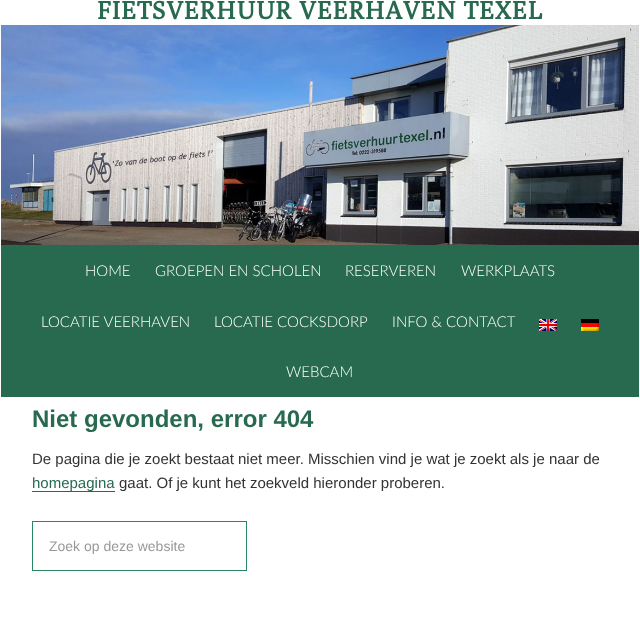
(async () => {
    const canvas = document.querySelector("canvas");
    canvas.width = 640;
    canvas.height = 623;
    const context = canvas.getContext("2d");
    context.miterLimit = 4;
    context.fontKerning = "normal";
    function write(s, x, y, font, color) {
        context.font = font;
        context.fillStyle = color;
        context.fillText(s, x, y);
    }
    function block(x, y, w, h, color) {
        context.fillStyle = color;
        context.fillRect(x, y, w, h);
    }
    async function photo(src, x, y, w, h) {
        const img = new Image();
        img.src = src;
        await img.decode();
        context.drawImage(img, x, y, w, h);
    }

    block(0, 0, 640, 623, "rgb(255, 255, 255)");
    context.letterSpacing = "1px";
    write("FIETSVERHUUR VEERHAVEN TEXEL", 97, 19, "bold 25px Poly", "rgb(39, 106, 80)");
    await photo("media/1.png", 1, 25, 638, 220);
    block(1, 245, 638, 152, "rgb(39, 106, 80)");
    context.letterSpacing = "0px";
    write("HOME", 85, 276, "300 15px Lato", "rgb(255, 255, 255)");
    write("GROEPEN EN SCHOLEN", 155, 276, "300 15px Lato", "rgb(255, 255, 255)");
    write("RESERVEREN", 345, 276, "300 15px Lato", "rgb(255, 255, 255)");
    write("WERKPLAATS", 461, 276, "300 15px Lato", "rgb(255, 255, 255)");
    write("LOCATIE VEERHAVEN", 41, 327, "300 15px Lato", "rgb(255, 255, 255)");
    write("LOCATIE COCKSDORP", 214, 327, "300 15px Lato", "rgb(255, 255, 255)");
    write("INFO & CONTACT", 392, 327, "300 15px Lato", "rgb(255, 255, 255)");
    await photo("media/2.png", 539, 319, 18, 12);
    await photo("media/3.png", 581, 319, 18, 12);
    write("WEBCAM", 286, 377, "300 15px Lato", "rgb(255, 255, 255)");
    write("Niet gevonden, error 404", 32, 427, "bold 24px Liberation Sans", "rgb(39, 106, 80)");
    write("De pagina die je zoekt bestaat niet meer. Misschien vind je wat je zoekt als je naar de", 32, 464, "15px Liberation Sans", "rgb(51, 51, 51)");
    block(32, 491, 83, 1, "rgb(39, 106, 80)");
    write("homepagina", 32, 488, "15px Liberation Sans", "rgb(39, 106, 80)");
    write("gaat. Of je kunt het zoekveld hieronder proberen.", 119, 488, "15px Liberation Sans", "rgb(51, 51, 51)");
    context.strokeStyle = "rgb(39, 136, 98)";
    context.strokeRect(32.5, 521.5, 214, 49);
    write("Zoek op deze website", 49, 551, "14px Liberation Sans", "rgb(153, 153, 153)");
})();
